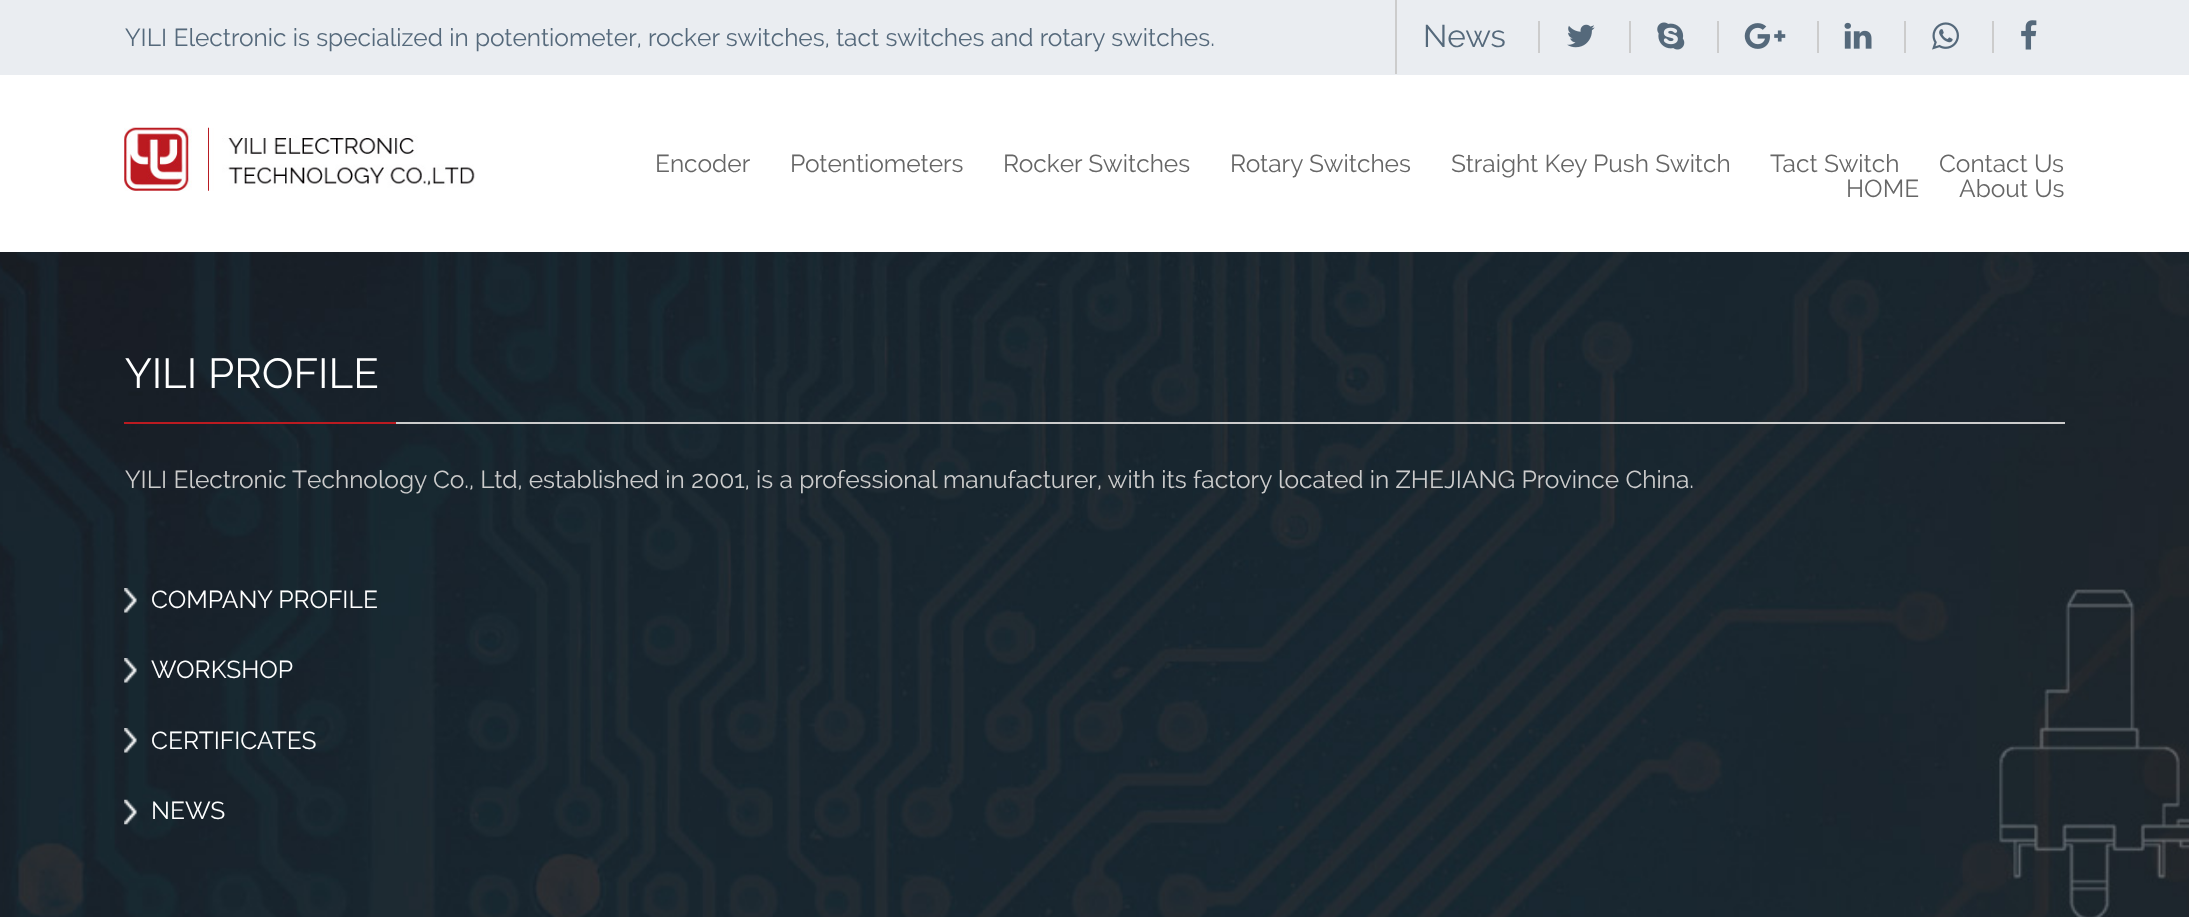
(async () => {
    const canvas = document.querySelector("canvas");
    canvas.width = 2189;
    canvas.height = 917;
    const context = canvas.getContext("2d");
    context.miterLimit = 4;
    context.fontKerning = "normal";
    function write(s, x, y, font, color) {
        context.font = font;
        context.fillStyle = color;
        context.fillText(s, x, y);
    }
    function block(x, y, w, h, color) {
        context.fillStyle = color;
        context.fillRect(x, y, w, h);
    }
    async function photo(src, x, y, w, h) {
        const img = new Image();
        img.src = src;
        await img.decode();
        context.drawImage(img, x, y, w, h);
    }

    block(0, 0, 2189, 917, "rgb(255, 255, 255)");
    block(0, 0, 2189, 75, "rgb(234, 237, 241)");
    write("YILI Electronic is specialized in potentiometer, rocker switches, tact switches and rotary switches.", 125, 46, "24.5px Raleway", "rgb(85, 105, 123)");
    block(1395, 0, 2, 74, "rgb(204, 204, 204)");
    write("News", 1423, 47, "31.5px Raleway", "rgb(85, 105, 123)");
    block(1538, 21, 2, 32, "rgb(204, 204, 204)");
    await photo("media/1.png", 1567, 24, 28, 24);
    block(1629, 21, 2, 32, "rgb(204, 204, 204)");
    await photo("media/2.png", 1657, 22, 28, 28);
    block(1717, 21, 2, 32, "rgb(204, 204, 204)");
    await photo("media/3.png", 1744, 23, 42, 26);
    block(1817, 21, 2, 32, "rgb(204, 204, 204)");
    await photo("media/4.png", 1844, 22, 28, 27);
    block(1904, 21, 2, 32, "rgb(204, 204, 204)");
    await photo("media/5.png", 1932, 22, 27, 28);
    block(1992, 21, 2, 32, "rgb(204, 204, 204)");
    await photo("media/6.png", 2021, 20, 16, 30);
    await photo("media/7.png", 124, 127, 351, 64);
    write("Encoder", 655, 172, "24.5px Raleway", "rgb(102, 102, 102)");
    write("Potentiometers", 790, 172, "24.5px Raleway", "rgb(102, 102, 102)");
    write("Rocker Switches", 1003, 172, "24.5px Raleway", "rgb(102, 102, 102)");
    write("Rotary Switches", 1230, 172, "24.5px Raleway", "rgb(102, 102, 102)");
    write("Straight Key Push Switch", 1451, 172, "24.5px Raleway", "rgb(102, 102, 102)");
    write("Tact Switch", 1770, 172, "24.5px Raleway", "rgb(102, 102, 102)");
    write("Contact Us", 1939, 172, "24.5px Raleway", "rgb(102, 102, 102)");
    write("HOME", 1846, 197, "24.5px Raleway", "rgb(102, 102, 102)");
    write("About Us", 1959, 197, "24.5px Raleway", "rgb(102, 102, 102)");
    await photo("media/8.png", 0, 252, 2189, 665);
    block(396, 422, 1669, 2, "rgb(204, 204, 204)");
    write("YILI PROFILE", 125, 388, "42px Raleway", "rgb(255, 255, 255)");
    block(124, 422, 272, 2, "rgb(187, 27, 33)");
    write("YILI Electronic Technology Co., Ltd, established in 2001, is a professional manufacturer, with its factory located in ZHEJIANG Province China.", 125, 488, "24.5px Raleway", "rgb(204, 204, 204)");
    await photo("media/9.png", 124, 588, 13, 25);
    write("COMPANY PROFILE", 151, 608, "24.5px Raleway", "rgb(255, 255, 255)");
    await photo("media/10.png", 124, 658, 13, 25);
    write("WORKSHOP", 151, 678, "24.5px Raleway", "rgb(255, 255, 255)");
    await photo("media/11.png", 124, 728, 13, 25);
    write("CERTIFICATES", 151, 749, "24.5px Raleway", "rgb(255, 255, 255)");
    await photo("media/12.png", 124, 799, 13, 26);
    write("NEWS", 151, 819, "24.5px Raleway", "rgb(255, 255, 255)");
})();
